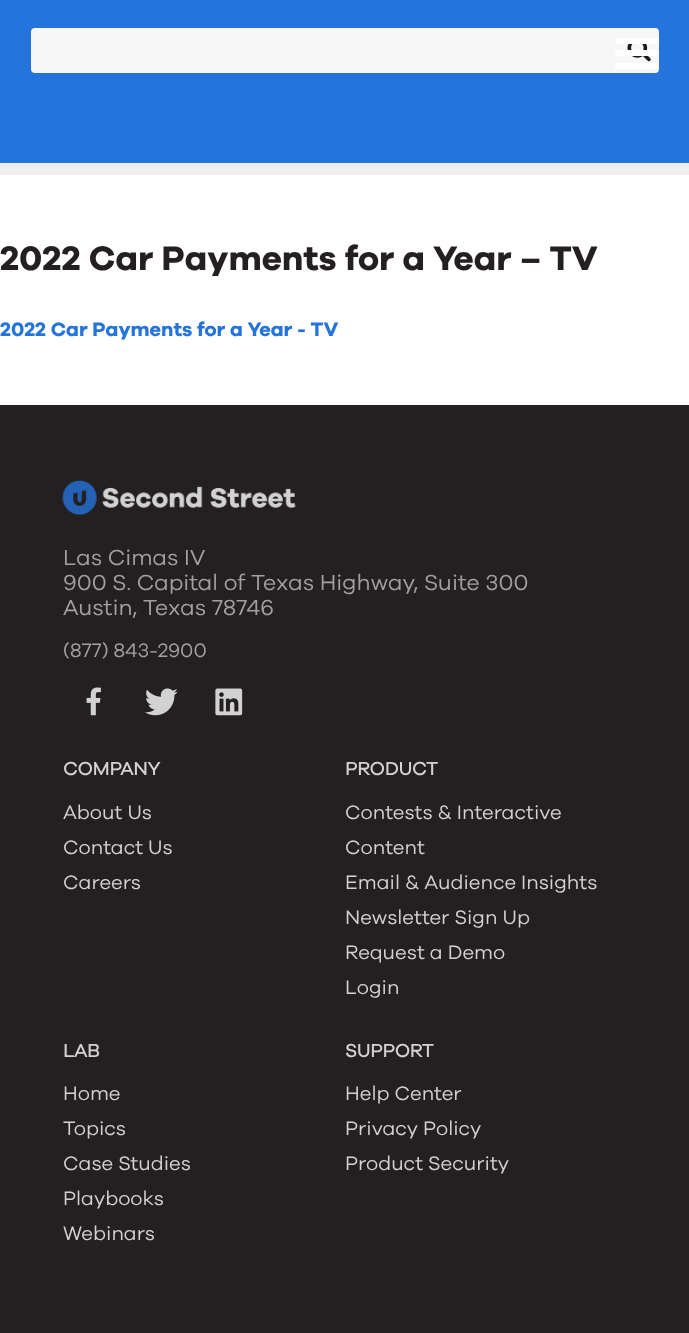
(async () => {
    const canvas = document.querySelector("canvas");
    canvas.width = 689;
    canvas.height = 1333;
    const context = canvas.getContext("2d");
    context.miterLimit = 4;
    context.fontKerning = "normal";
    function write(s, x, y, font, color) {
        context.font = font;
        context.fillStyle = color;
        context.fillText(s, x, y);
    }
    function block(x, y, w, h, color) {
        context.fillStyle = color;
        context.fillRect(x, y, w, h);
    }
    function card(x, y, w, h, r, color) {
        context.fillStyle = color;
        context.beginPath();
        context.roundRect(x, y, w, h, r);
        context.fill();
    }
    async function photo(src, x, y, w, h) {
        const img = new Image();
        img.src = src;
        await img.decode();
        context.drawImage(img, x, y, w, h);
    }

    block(0, 0, 689, 1333, "rgb(255, 255, 255)");
    block(0, 0, 689, 163, "rgb(37, 116, 219)");
    card(31, 28, 628, 45, 4, "rgb(247, 247, 247)");
    await photo("media/1.png", 627, 44, 24, 18);
    block(0, 163, 689, 12, "rgb(239, 239, 239)");
    card(615, 38, 44, 6, 2.5, "rgb(255, 255, 255)");
    card(615, 50, 44, 6, 2.5, "rgb(255, 255, 255)");
    card(615, 63, 44, 6, 2.5, "rgb(255, 255, 255)");
    write("2022 Car Payments for a Year – TV", 0, 270, "bold 35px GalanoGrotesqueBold", "rgb(36, 31, 32)");
    write("2022 Car Payments for a Year - TV", 0, 336, "bold 20px GalanoGrotesqueBold", "rgb(37, 116, 219)");
    block(0, 405, 689, 928, "rgb(36, 31, 32)");
    await photo("media/2.png", 62, 480, 234, 35);
    write("Las Cimas IV", 63, 565, "22.5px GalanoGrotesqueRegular", "rgb(161, 160, 160)");
    write("900 S. Capital of Texas Highway, Suite 300", 63, 590, "22.5px GalanoGrotesqueRegular", "rgb(161, 160, 160)");
    write("Austin, Texas 78746", 63, 615, "22.5px GalanoGrotesqueRegular", "rgb(161, 160, 160)");
    write("(877) 843-2900", 63, 657, "20px GalanoGrotesqueRegular", "rgb(161, 160, 160)");
    await photo("media/3.png", 86, 687, 15, 29);
    await photo("media/4.png", 145, 688, 33, 28);
    await photo("media/5.png", 215, 688, 28, 28);
    write("COMPANY", 63, 775, "bold 18.75px GalanoGrotesqueRegular", "rgb(211, 210, 210)");
    write("About Us", 63, 819, "20px GalanoGrotesqueRegular", "rgb(211, 210, 210)");
    write("Contact Us", 63, 854, "20px GalanoGrotesqueRegular", "rgb(211, 210, 210)");
    write("Careers", 63, 889, "20px GalanoGrotesqueRegular", "rgb(211, 210, 210)");
    write("PRODUCT", 345, 775, "bold 18.75px GalanoGrotesqueRegular", "rgb(211, 210, 210)");
    write("Contests & Interactive", 345, 819, "20px GalanoGrotesqueRegular", "rgb(211, 210, 210)");
    write("Content", 345, 854, "20px GalanoGrotesqueRegular", "rgb(211, 210, 210)");
    write("Email & Audience Insights", 345, 889, "20px GalanoGrotesqueRegular", "rgb(211, 210, 210)");
    write("Newsletter Sign Up", 345, 924, "20px GalanoGrotesqueRegular", "rgb(211, 210, 210)");
    write("Request a Demo", 345, 959, "20px GalanoGrotesqueRegular", "rgb(211, 210, 210)");
    write("Login", 345, 994, "20px GalanoGrotesqueRegular", "rgb(211, 210, 210)");
    write("LAB", 63, 1057, "bold 18.75px GalanoGrotesqueRegular", "rgb(211, 210, 210)");
    write("Home", 63, 1100, "20px GalanoGrotesqueRegular", "rgb(211, 210, 210)");
    write("Topics", 63, 1135, "20px GalanoGrotesqueRegular", "rgb(211, 210, 210)");
    write("Case Studies", 63, 1170, "20px GalanoGrotesqueRegular", "rgb(211, 210, 210)");
    write("Playbooks", 63, 1205, "20px GalanoGrotesqueRegular", "rgb(211, 210, 210)");
    write("Webinars", 63, 1240, "20px GalanoGrotesqueRegular", "rgb(211, 210, 210)");
    write("SUPPORT", 345, 1057, "bold 18.75px GalanoGrotesqueRegular", "rgb(211, 210, 210)");
    write("Help Center", 345, 1100, "20px GalanoGrotesqueRegular", "rgb(211, 210, 210)");
    write("Privacy Policy", 345, 1135, "20px GalanoGrotesqueRegular", "rgb(211, 210, 210)");
    write("Product Security", 345, 1170, "20px GalanoGrotesqueRegular", "rgb(211, 210, 210)");
})();
